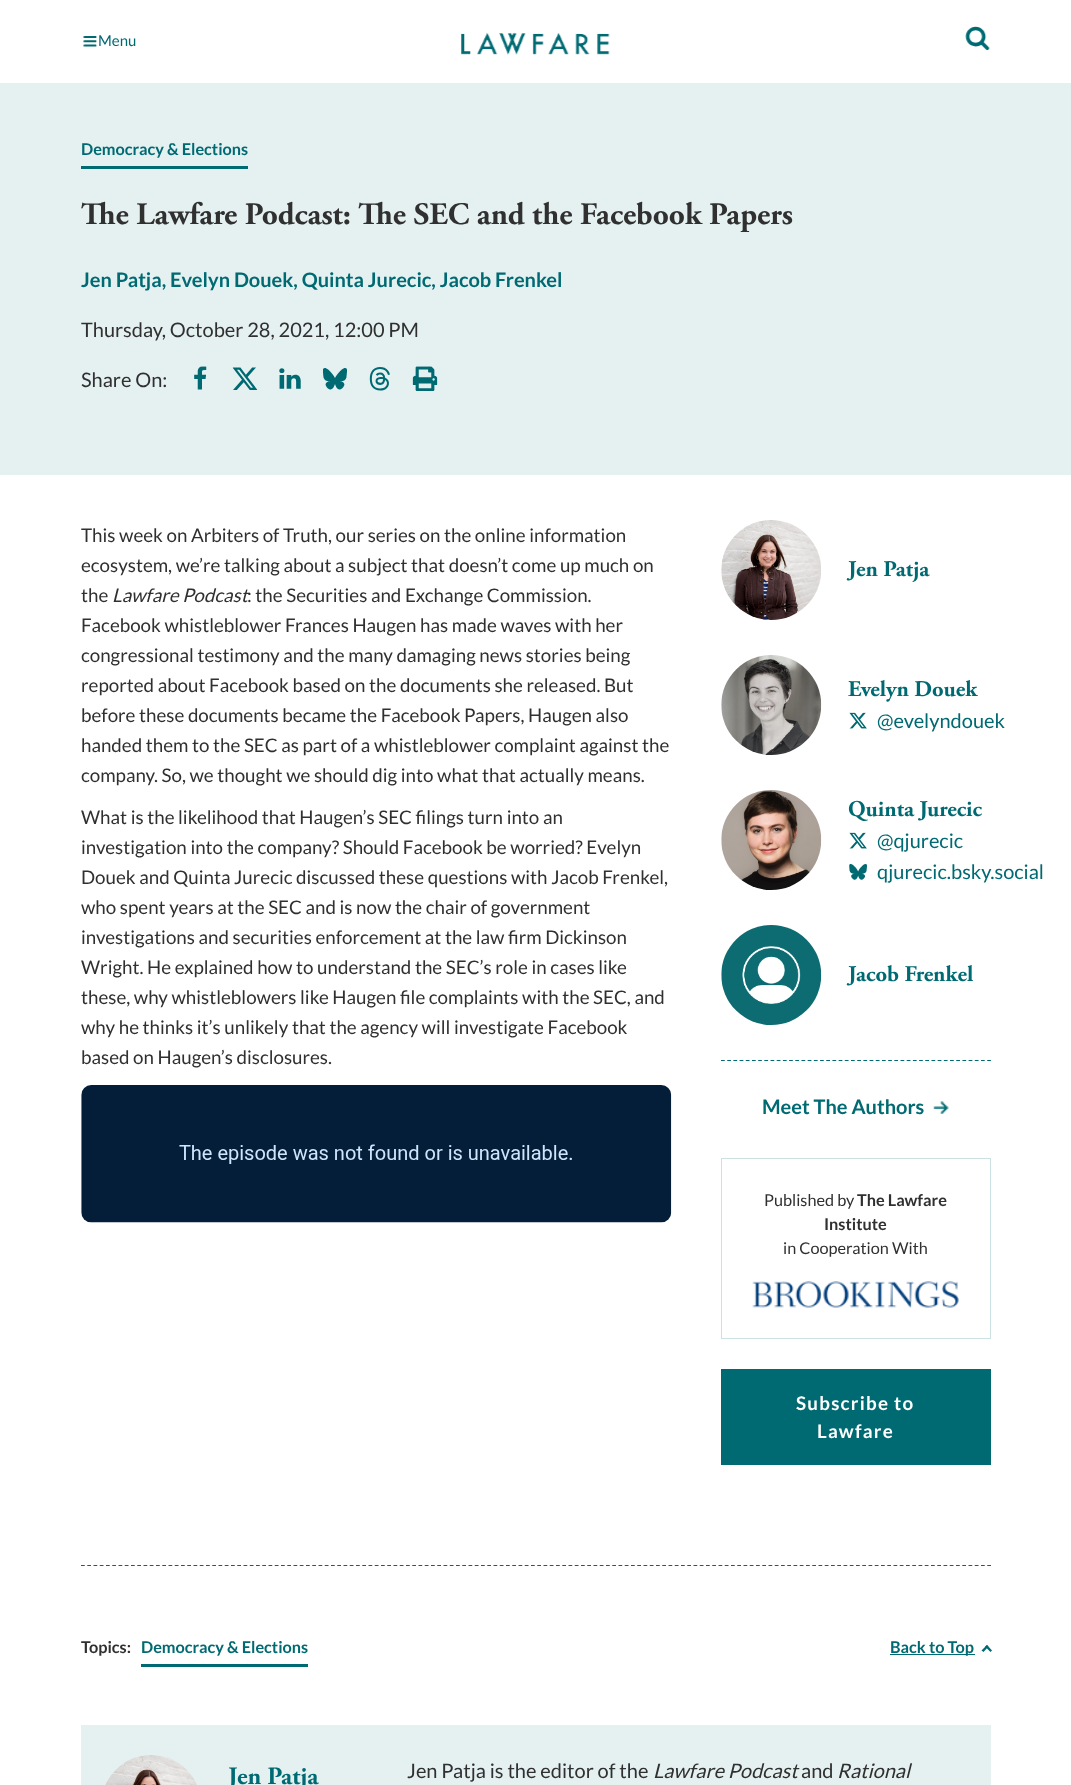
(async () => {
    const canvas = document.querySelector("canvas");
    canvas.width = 1071;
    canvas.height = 1785;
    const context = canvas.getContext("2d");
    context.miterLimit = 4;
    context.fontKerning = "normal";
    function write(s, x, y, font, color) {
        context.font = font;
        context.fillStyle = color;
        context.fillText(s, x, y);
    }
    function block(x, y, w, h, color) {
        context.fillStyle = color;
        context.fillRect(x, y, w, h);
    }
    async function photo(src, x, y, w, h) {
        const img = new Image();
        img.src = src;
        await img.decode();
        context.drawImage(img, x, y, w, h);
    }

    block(0, 0, 1071, 1785, "rgb(255, 255, 255)");
    await photo("media/1.png", 83, 36, 15, 11);
    write("Menu", 98, 46, "15px Lato", "rgb(0, 106, 114)");
    await photo("media/2.png", 461, 32, 149, 23);
    await photo("media/3.png", 965, 26, 25, 24);
    block(0, 83, 1071, 392, "rgb(229, 240, 241)");
    write("Democracy & Elections", 81, 155, "bold 16.25px Lato", "rgb(0, 106, 114)");
    block(81, 166, 167, 3, "rgb(0, 106, 114)");
    write("The Lawfare Podcast: The SEC and the Facebook Papers", 81, 224, "bold 31.25px Adobe Garamond", "rgb(48, 48, 48)");
    write("Jen Patja, Evelyn Douek, Quinta Jurecic, Jacob Frenkel", 81, 287, "bold 20px Lato", "rgb(0, 106, 114)");
    write("Thursday, October 28, 2021, 12:00 PM", 81, 337, "20px Lato", "rgb(48, 48, 48)");
    write("Share On:", 81, 387, "20px Lato", "rgb(48, 48, 48)");
    await photo("media/4.png", 194, 366, 13, 24);
    await photo("media/5.png", 232, 367, 26, 23);
    await photo("media/6.png", 279, 368, 22, 21);
    await photo("media/7.png", 323, 368, 24, 22);
    await photo("media/8.png", 369, 367, 21, 24);
    await photo("media/9.png", 412, 366, 26, 25);
    write("This week on Arbiters of Truth, our series on the online information", 81, 542, "18.75px Lato", "rgb(48, 48, 48)");
    write("ecosystem, we’re talking about a subject that doesn’t come up much on", 81, 572, "18.75px Lato", "rgb(48, 48, 48)");
    write("the", 81, 602, "18.75px Lato", "rgb(48, 48, 48)");
    write("Lawfare Podcast", 112, 602, "italic 18.75px Lato", "rgb(48, 48, 48)");
    write(": the Securities and Exchange Commission.", 247, 602, "18.75px Lato", "rgb(48, 48, 48)");
    write("Facebook whistleblower Frances Haugen has made waves with her", 81, 632, "18.75px Lato", "rgb(48, 48, 48)");
    write("congressional testimony and the many damaging news stories being", 81, 662, "18.75px Lato", "rgb(48, 48, 48)");
    write("reported about Facebook based on the documents she released. But", 81, 692, "18.75px Lato", "rgb(48, 48, 48)");
    write("before these documents became the Facebook Papers, Haugen also", 81, 722, "18.75px Lato", "rgb(48, 48, 48)");
    write("handed them to the SEC as part of a whistleblower complaint against the", 81, 752, "18.75px Lato", "rgb(48, 48, 48)");
    write("company. So, we thought we should dig into what that actually means.", 81, 782, "18.75px Lato", "rgb(48, 48, 48)");
    write("What is the likelihood that Haugen’s SEC filings turn into an", 81, 824, "18.75px Lato", "rgb(48, 48, 48)");
    write("investigation into the company? Should Facebook be worried? Evelyn", 81, 854, "18.75px Lato", "rgb(48, 48, 48)");
    write("Douek and Quinta Jurecic discussed these questions with Jacob Frenkel,", 81, 884, "18.75px Lato", "rgb(48, 48, 48)");
    write("who spent years at the SEC and is now the chair of government", 81, 914, "18.75px Lato", "rgb(48, 48, 48)");
    write("investigations and securities enforcement at the law firm Dickinson", 81, 944, "18.75px Lato", "rgb(48, 48, 48)");
    write("Wright. He explained how to understand the SEC’s role in cases like", 81, 974, "18.75px Lato", "rgb(48, 48, 48)");
    write("these, why whistleblowers like Haugen file complaints with the SEC, and", 81, 1004, "18.75px Lato", "rgb(48, 48, 48)");
    write("why he thinks it’s unlikely that the agency will investigate Facebook", 81, 1034, "18.75px Lato", "rgb(48, 48, 48)");
    write("based on Haugen’s disclosures.", 81, 1064, "18.75px Lato", "rgb(48, 48, 48)");
    await photo("media/10.png", 81, 1085, 591, 138);
    await photo("media/11.png", 721, 520, 100, 100);
    write("Jen Patja", 848, 576, "bold 22.5px Adobe Garamond", "rgb(0, 106, 114)");
    await photo("media/12.png", 721, 655, 101, 100);
    write("Evelyn Douek", 848, 696, "bold 22.5px Adobe Garamond", "rgb(0, 106, 114)");
    await photo("media/13.png", 849, 712, 18, 17);
    write("@evelyndouek", 877, 728, "20px Lato", "rgb(0, 106, 114)");
    await photo("media/14.png", 721, 790, 101, 100);
    write("Quinta Jurecic", 848, 816, "bold 22.5px Adobe Garamond", "rgb(0, 106, 114)");
    await photo("media/13.png", 849, 832, 18, 17);
    write("@qjurecic", 877, 848, "20px Lato", "rgb(0, 106, 114)");
    await photo("media/15.png", 849, 864, 18, 16);
    write("qjurecic.bsky.social", 877, 879, "20px Lato", "rgb(0, 106, 114)");
    await photo("media/16.png", 721, 925, 101, 100);
    write("Jacob Frenkel", 848, 981, "bold 22.5px Adobe Garamond", "rgb(0, 106, 114)");
    context.beginPath();
    context.moveTo(721, 1060.5);
    context.lineTo(991, 1060.5);
    context.strokeStyle = "rgb(0, 106, 114)";
    context.lineWidth = 1.2;
    context.setLineDash([3.75, 2.44]);
    context.stroke();
    write("Meet The Authors", 762, 1114, "bold 20px Lato", "rgb(0, 106, 114)");
    await photo("media/17.png", 933, 1101, 16, 13);
    context.strokeStyle = "rgb(203, 225, 226)";
    context.lineWidth = 1;
    context.setLineDash([]);
    context.strokeRect(721.5, 1158.5, 269, 180);
    write("Published by", 764, 1206, "16.25px Lato", "rgb(48, 48, 48)");
    write("The Lawfare", 857, 1206, "bold 16.25px Lato", "rgb(48, 48, 48)");
    write("Institute", 824, 1230, "bold 16.25px Lato", "rgb(48, 48, 48)");
    write("in Cooperation With", 783, 1254, "16.25px Lato", "rgb(48, 48, 48)");
    await photo("media/18.png", 752, 1281, 207, 27);
    block(721, 1369, 270, 96, "rgb(0, 106, 114)");
    context.letterSpacing = "1.25px";
    write("Subscribe to", 796, 1410, "bold 18.75px Lato", "rgb(255, 255, 255)");
    write("Lawfare", 817, 1438, "bold 18.75px Lato", "rgb(255, 255, 255)");
    context.beginPath();
    context.moveTo(81, 1565.5);
    context.lineTo(991, 1565.5);
    context.strokeStyle = "rgb(0, 106, 114)";
    context.lineWidth = 1.2;
    context.setLineDash([3.75, 2.5]);
    context.stroke();
    context.letterSpacing = "0px";
    write("Topics:", 81, 1653, "bold 16.25px Lato", "rgb(48, 48, 48)");
    write("Democracy & Elections", 141, 1653, "bold 16.25px Lato", "rgb(0, 106, 114)");
    block(141, 1664, 167, 3, "rgb(0, 106, 114)");
    block(890, 1654, 85, 1, "rgb(0, 106, 114)");
    write("Back to Top", 890, 1653, "bold 16.25px Lato", "rgb(0, 106, 114)");
    context.beginPath();
    context.moveTo(981.5, 1650.5);
    context.lineTo(987, 1645);
    context.lineTo(988.5, 1646.5);
    context.lineTo(983.5, 1652);
    context.closePath();
    context.fill();
    context.beginPath();
    context.moveTo(985, 1646.5);
    context.lineTo(987, 1645);
    context.lineTo(992, 1650.5);
    context.lineTo(990.5, 1652);
    context.closePath();
    context.fill();
    block(81, 1725, 910, 60, "rgb(229, 240, 241)");
    await photo("media/19.png", 105, 1755, 92, 30);
    write("Jen Patja", 228, 1784, "bold 25px Adobe Garamond", "rgb(0, 106, 114)");
    write("Jen Patja is the editor of the", 407, 1778, "20px Lato", "rgb(48, 48, 48)");
    write("Lawfare Podcast", 653, 1778, "italic 20px Lato", "rgb(48, 48, 48)");
    write("and", 801, 1778, "20px Lato", "rgb(48, 48, 48)");
    write("Rational", 837, 1778, "italic 20px Lato", "rgb(48, 48, 48)");
})();
